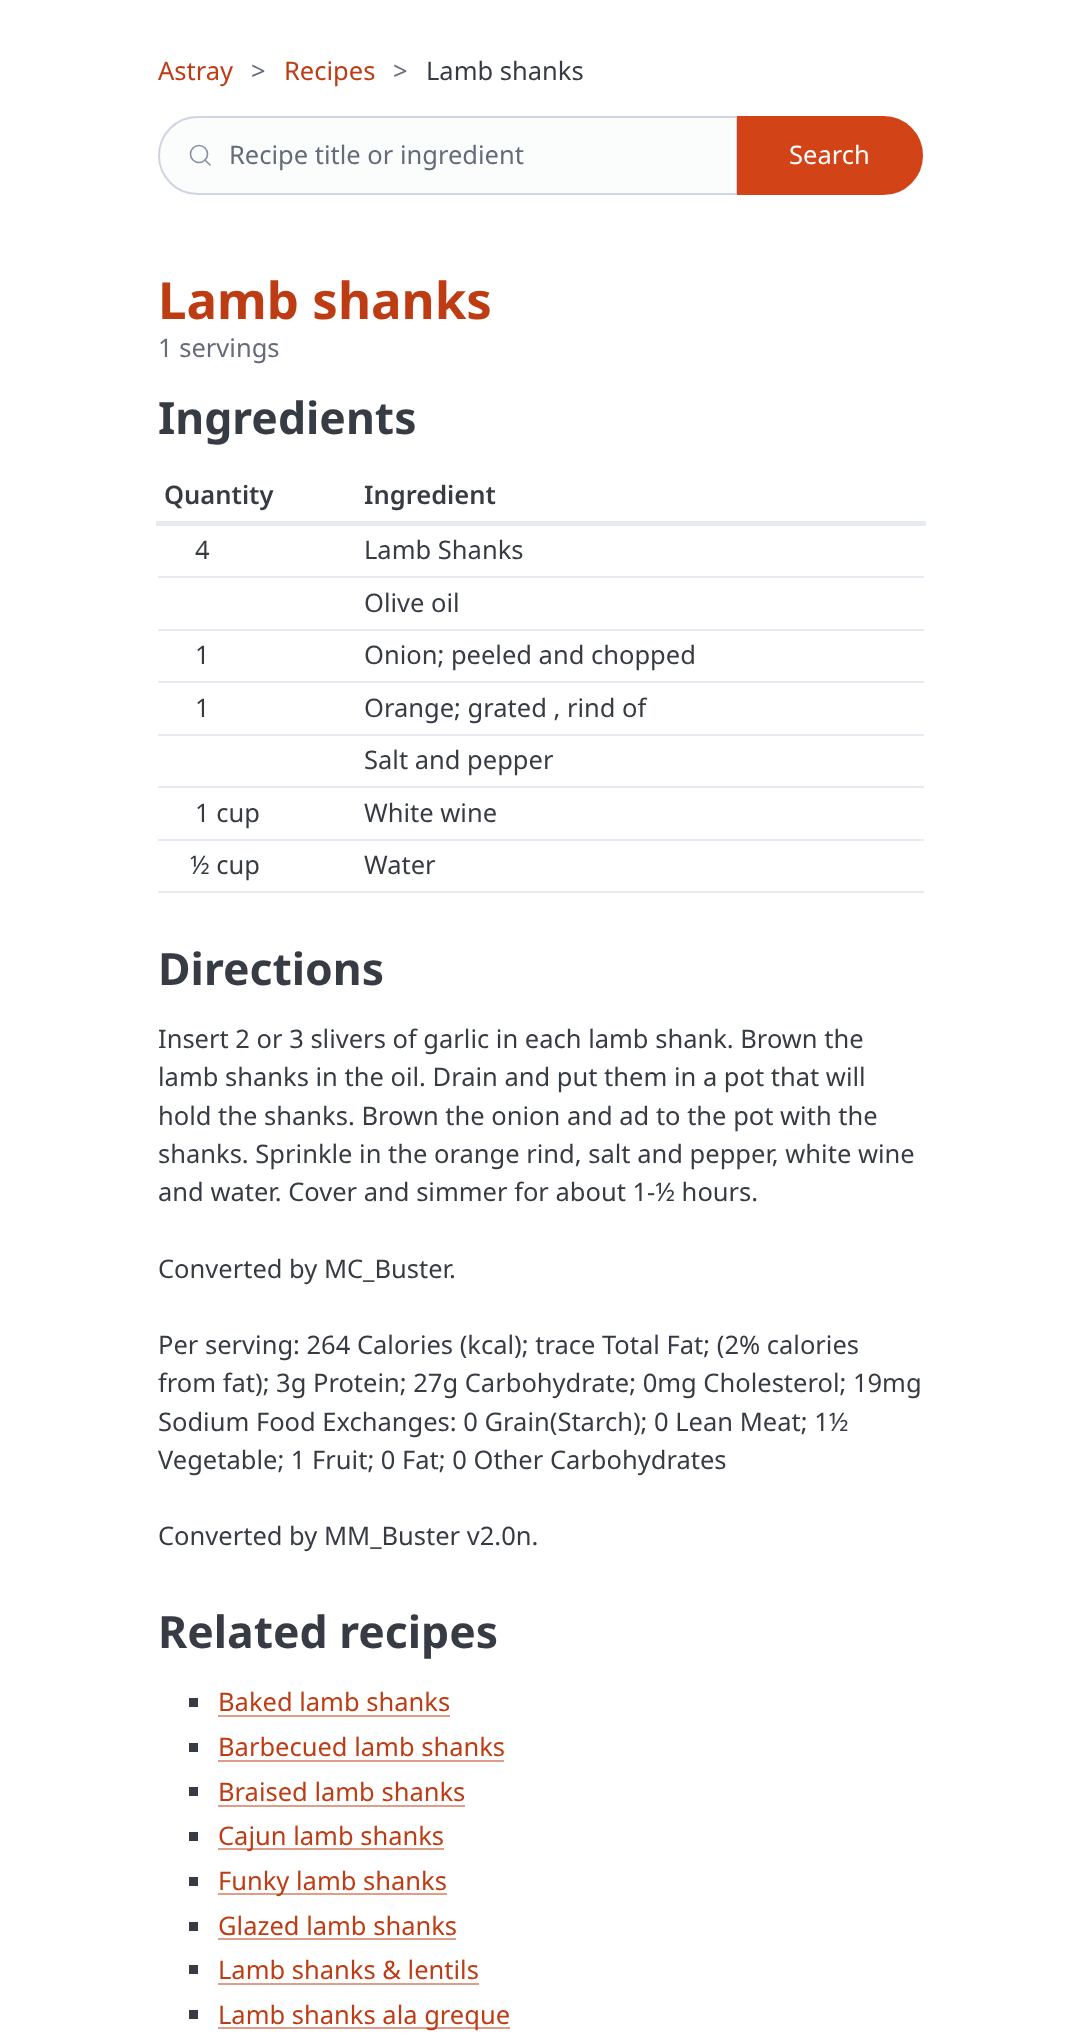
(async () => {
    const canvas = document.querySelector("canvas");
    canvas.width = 1080;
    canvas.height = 2035;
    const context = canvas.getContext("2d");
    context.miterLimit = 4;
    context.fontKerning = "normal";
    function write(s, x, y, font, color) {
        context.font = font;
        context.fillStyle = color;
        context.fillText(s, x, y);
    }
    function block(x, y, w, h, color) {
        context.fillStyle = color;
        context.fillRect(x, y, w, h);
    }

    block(0, 0, 1080, 2035, "rgb(255, 255, 255)");
    write("Astray", 158, 80, "25.5px Noto Sans", "rgb(189, 60, 19)");
    write(">", 251, 80, "25.5px Noto Sans", "rgb(100, 107, 121)");
    write("Recipes", 284, 80, "25.5px Noto Sans", "rgb(189, 60, 19)");
    write(">", 393, 80, "25.5px Noto Sans", "rgb(100, 107, 121)");
    write("Lamb shanks", 426, 80, "25.5px Noto Sans", "rgb(55, 60, 68)");
    context.fillStyle = "rgb(251, 252, 252)";
    context.beginPath();
    context.roundRect(158, 116, 580, 79, [39.5, 0, 0, 39.5]);
    context.fill();
    context.beginPath();
    context.arc(199, 154, 8.5, 0, Math.PI * 2);
    context.strokeStyle = "rgb(136, 145, 164)";
    context.lineWidth = 1.6;
    context.stroke();
    context.beginPath();
    context.moveTo(210, 165);
    context.lineTo(205, 160);
    context.lineCap = "round";
    context.lineJoin = "round";
    context.stroke();
    context.beginPath();
    context.roundRect(159, 117, 578, 77, [38.5, 0, 0, 38.5]);
    context.strokeStyle = "rgb(207, 213, 226)";
    context.lineWidth = 2;
    context.lineJoin = "miter";
    context.stroke();
    write("Recipe title or ingredient", 229, 164, "25.5px Noto Sans", "rgb(100, 107, 121)");
    context.fillStyle = "rgb(210, 67, 23)";
    context.beginPath();
    context.roundRect(738, 117, 184, 77, [0, 38.5, 38.5, 0]);
    context.fill();
    context.strokeStyle = "rgb(210, 67, 23)";
    context.stroke();
    write("Search", 789, 164, "25.5px Noto Sans", "rgb(255, 255, 255)");
    write("Lamb shanks", 158, 319, "bold 51px Noto Sans", "rgb(189, 60, 19)");
    write("1 servings", 158, 357, "25.5px Noto Sans", "rgb(100, 107, 121)");
    write("Ingredients", 158, 434, "bold 44.5px Noto Sans", "rgb(55, 60, 68)");
    write("Quantity", 164, 504, "600 25.5px Noto Sans", "rgb(55, 60, 68)");
    block(156, 521, 770, 5, "rgb(231, 234, 240)");
    write("Ingredient", 364, 504, "600 25.5px Noto Sans", "rgb(55, 60, 68)");
    write("4", 195, 559, "25.5px Noto Sans", "rgb(55, 60, 68)");
    block(158, 576, 766, 2, "rgb(231, 234, 240)");
    write("Lamb Shanks", 364, 559, "25.5px Noto Sans", "rgb(55, 60, 68)");
    block(158, 629, 766, 2, "rgb(231, 234, 240)");
    write("Olive oil", 364, 612, "25.5px Noto Sans", "rgb(55, 60, 68)");
    write("1", 195, 664, "25.5px Noto Sans", "rgb(55, 60, 68)");
    block(158, 681, 766, 2, "rgb(231, 234, 240)");
    write("Onion; peeled and chopped", 364, 664, "25.5px Noto Sans", "rgb(55, 60, 68)");
    write("1", 195, 717, "25.5px Noto Sans", "rgb(55, 60, 68)");
    block(158, 734, 766, 2, "rgb(231, 234, 240)");
    write("Orange; grated , rind of", 364, 717, "25.5px Noto Sans", "rgb(55, 60, 68)");
    block(158, 786, 766, 2, "rgb(231, 234, 240)");
    write("Salt and pepper", 364, 769, "25.5px Noto Sans", "rgb(55, 60, 68)");
    write("1 cup", 195, 822, "25.5px Noto Sans", "rgb(55, 60, 68)");
    block(158, 839, 766, 2, "rgb(231, 234, 240)");
    write("White wine", 364, 822, "25.5px Noto Sans", "rgb(55, 60, 68)");
    write("½ cup", 190, 874, "25.5px Noto Sans", "rgb(55, 60, 68)");
    block(158, 891, 766, 2, "rgb(231, 234, 240)");
    write("Water", 364, 874, "25.5px Noto Sans", "rgb(55, 60, 68)");
    write("Directions", 158, 985, "bold 44.5px Noto Sans", "rgb(55, 60, 68)");
    write("Insert 2 or 3 slivers of garlic in each lamb shank. Brown the", 158, 1048, "25.5px Noto Sans", "rgb(55, 60, 68)");
    write("lamb shanks in the oil. Drain and put them in a pot that will", 158, 1086, "25.5px Noto Sans", "rgb(55, 60, 68)");
    write("hold the shanks. Brown the onion and ad to the pot with the", 158, 1125, "25.5px Noto Sans", "rgb(55, 60, 68)");
    write("shanks. Sprinkle in the orange rind, salt and pepper, white wine", 158, 1163, "25.5px Noto Sans", "rgb(55, 60, 68)");
    write("and water. Cover and simmer for about 1-½ hours.", 158, 1201, "25.5px Noto Sans", "rgb(55, 60, 68)");
    write("Converted by MC_Buster.", 158, 1278, "25.5px Noto Sans", "rgb(55, 60, 68)");
    write("Per serving: 264 Calories (kcal); trace Total Fat; (2% calories", 158, 1354, "25.5px Noto Sans", "rgb(55, 60, 68)");
    write("from fat); 3g Protein; 27g Carbohydrate; 0mg Cholesterol; 19mg", 158, 1392, "25.5px Noto Sans", "rgb(55, 60, 68)");
    write("Sodium Food Exchanges: 0 Grain(Starch); 0 Lean Meat; 1½", 158, 1431, "25.5px Noto Sans", "rgb(55, 60, 68)");
    write("Vegetable; 1 Fruit; 0 Fat; 0 Other Carbohydrates", 158, 1469, "25.5px Noto Sans", "rgb(55, 60, 68)");
    write("Converted by MM_Buster v2.0n.", 158, 1545, "25.5px Noto Sans", "rgb(55, 60, 68)");
    write("Related recipes", 158, 1648, "bold 44.5px Noto Sans", "rgb(55, 60, 68)");
    block(189, 1698, 9, 9, "rgb(55, 60, 68)");
    write("Baked lamb shanks", 218, 1711, "25.5px Noto Sans", "rgb(189, 60, 19)");
    block(218, 1715, 232, 2, "rgb(222, 158, 137)");
    block(189, 1743, 9, 9, "rgb(55, 60, 68)");
    write("Barbecued lamb shanks", 218, 1756, "25.5px Noto Sans", "rgb(189, 60, 19)");
    block(218, 1760, 286, 2, "rgb(222, 158, 137)");
    block(189, 1787, 9, 9, "rgb(55, 60, 68)");
    write("Braised lamb shanks", 218, 1801, "25.5px Noto Sans", "rgb(189, 60, 19)");
    block(218, 1805, 247, 2, "rgb(222, 158, 137)");
    block(189, 1832, 9, 9, "rgb(55, 60, 68)");
    block(218, 1848, 226, 2, "rgb(222, 158, 137)");
    write("Cajun lamb shanks", 218, 1845, "25.5px Noto Sans", "rgb(189, 60, 19)");
    block(189, 1877, 9, 9, "rgb(55, 60, 68)");
    block(218, 1893, 229, 2, "rgb(222, 158, 137)");
    write("Funky lamb shanks", 218, 1890, "25.5px Noto Sans", "rgb(189, 60, 19)");
    block(189, 1922, 9, 9, "rgb(55, 60, 68)");
    write("Glazed lamb shanks", 218, 1935, "25.5px Noto Sans", "rgb(189, 60, 19)");
    block(218, 1938, 238, 2, "rgb(222, 158, 137)");
    block(189, 1965, 9, 9, "rgb(55, 60, 68)");
    write("Lamb shanks & lentils", 218, 1979, "25.5px Noto Sans", "rgb(189, 60, 19)");
    block(218, 1983, 261, 2, "rgb(222, 158, 137)");
    block(189, 2010, 9, 9, "rgb(55, 60, 68)");
    block(218, 2027, 292, 2, "rgb(222, 158, 137)");
    write("Lamb shanks ala greque", 218, 2024, "25.5px Noto Sans", "rgb(189, 60, 19)");
})();
